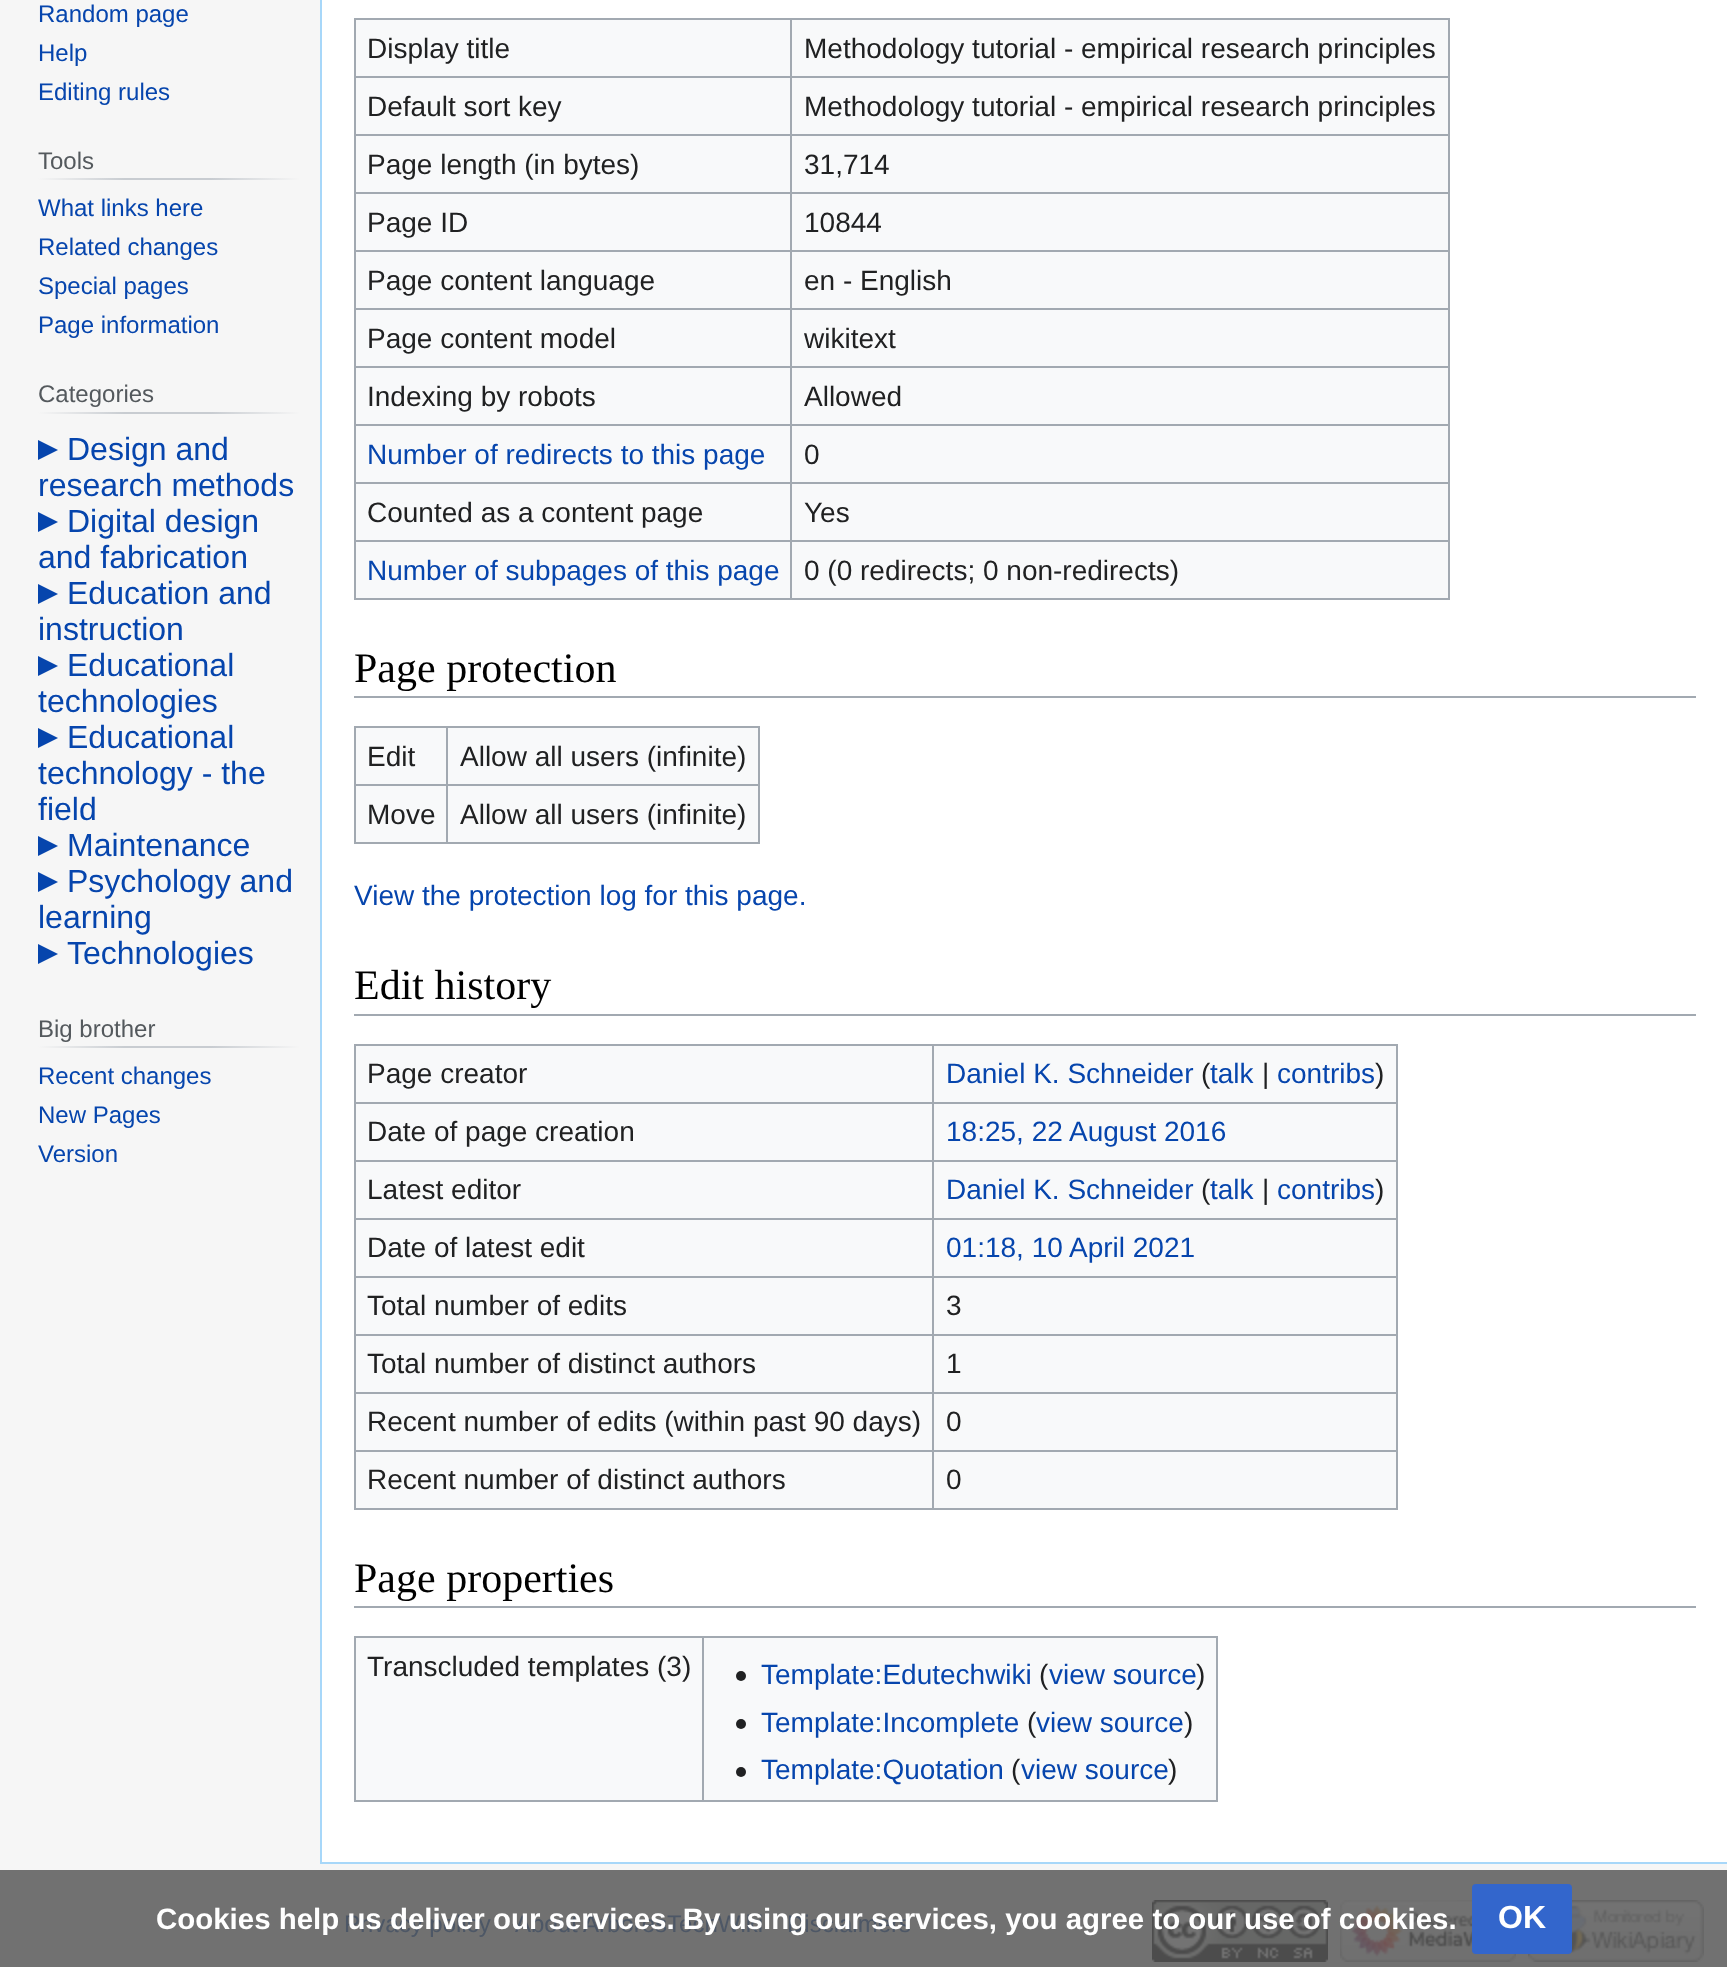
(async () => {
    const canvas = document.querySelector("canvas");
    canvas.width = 1727;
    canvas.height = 1967;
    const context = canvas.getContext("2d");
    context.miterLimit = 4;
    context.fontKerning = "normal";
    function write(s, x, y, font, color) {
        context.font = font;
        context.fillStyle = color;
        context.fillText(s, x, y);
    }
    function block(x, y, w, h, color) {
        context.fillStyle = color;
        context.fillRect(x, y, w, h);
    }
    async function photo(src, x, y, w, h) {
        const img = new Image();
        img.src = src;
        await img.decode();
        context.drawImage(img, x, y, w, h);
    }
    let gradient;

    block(0, 0, 1727, 1967, "rgb(246, 246, 246)");
    block(0, 1870, 1727, 97, "rgb(113, 113, 113)");
    write("Random page", 38, 22, "24px Liberation Sans", "rgb(6, 69, 173)");
    write("Help", 38, 61, "24px Liberation Sans", "rgb(6, 69, 173)");
    write("Editing rules", 38, 100, "24px Liberation Sans", "rgb(6, 69, 173)");
    gradient = context.createLinearGradient(38, 179, 300, 179);
    gradient.addColorStop(0, "rgb(246, 246, 246)");
    gradient.addColorStop(0.33, "rgb(200, 204, 209)");
    gradient.addColorStop(0.66, "rgb(200, 204, 209)");
    gradient.addColorStop(1, "rgb(246, 246, 246)");
    context.fillStyle = gradient;
    context.fillRect(38, 178, 262, 2);
    write("Tools", 38, 169, "24px Liberation Sans", "rgb(84, 89, 93)");
    write("What links here", 38, 216, "24px Liberation Sans", "rgb(6, 69, 173)");
    write("Related changes", 38, 255, "24px Liberation Sans", "rgb(6, 69, 173)");
    write("Special pages", 38, 294, "24px Liberation Sans", "rgb(6, 69, 173)");
    write("Page information", 38, 333, "24px Liberation Sans", "rgb(6, 69, 173)");
    gradient = context.createLinearGradient(38, 413, 300, 413);
    gradient.addColorStop(0, "rgb(246, 246, 246)");
    gradient.addColorStop(0.33, "rgb(200, 204, 209)");
    gradient.addColorStop(0.66, "rgb(200, 204, 209)");
    gradient.addColorStop(1, "rgb(246, 246, 246)");
    context.fillStyle = gradient;
    context.fillRect(38, 412, 262, 2);
    write("Categories", 38, 402, "24px Liberation Sans", "rgb(84, 89, 93)");
    context.fillStyle = "rgb(6, 69, 173)";
    context.beginPath();
    context.moveTo(38, 460);
    context.lineTo(38, 440);
    context.lineTo(58, 450);
    context.closePath();
    context.fill();
    write("Design and", 67, 460, "32px Liberation Sans", "rgb(6, 69, 173)");
    write("research methods", 38, 496, "32px Liberation Sans", "rgb(6, 69, 173)");
    context.beginPath();
    context.moveTo(38, 532);
    context.lineTo(38, 512);
    context.lineTo(58, 522);
    context.closePath();
    context.fill();
    write("Digital design", 67, 532, "32px Liberation Sans", "rgb(6, 69, 173)");
    write("and fabrication", 38, 568, "32px Liberation Sans", "rgb(6, 69, 173)");
    context.beginPath();
    context.moveTo(38, 604);
    context.lineTo(38, 584);
    context.lineTo(58, 594);
    context.closePath();
    context.fill();
    write("Education and", 67, 604, "32px Liberation Sans", "rgb(6, 69, 173)");
    write("instruction", 38, 640, "32px Liberation Sans", "rgb(6, 69, 173)");
    context.beginPath();
    context.moveTo(38, 676);
    context.lineTo(38, 656);
    context.lineTo(58, 666);
    context.closePath();
    context.fill();
    write("Educational", 67, 676, "32px Liberation Sans", "rgb(6, 69, 173)");
    write("technologies", 38, 712, "32px Liberation Sans", "rgb(6, 69, 173)");
    context.beginPath();
    context.moveTo(38, 748);
    context.lineTo(38, 728);
    context.lineTo(58, 738);
    context.closePath();
    context.fill();
    write("Educational", 67, 748, "32px Liberation Sans", "rgb(6, 69, 173)");
    write("technology - the", 38, 784, "32px Liberation Sans", "rgb(6, 69, 173)");
    write("field", 38, 820, "32px Liberation Sans", "rgb(6, 69, 173)");
    context.beginPath();
    context.moveTo(38, 856);
    context.lineTo(38, 836);
    context.lineTo(58, 846);
    context.closePath();
    context.fill();
    write("Maintenance", 67, 856, "32px Liberation Sans", "rgb(6, 69, 173)");
    context.beginPath();
    context.moveTo(38, 892);
    context.lineTo(38, 872);
    context.lineTo(58, 882);
    context.closePath();
    context.fill();
    write("Psychology and", 67, 892, "32px Liberation Sans", "rgb(6, 69, 173)");
    write("learning", 38, 928, "32px Liberation Sans", "rgb(6, 69, 173)");
    context.beginPath();
    context.moveTo(38, 964);
    context.lineTo(38, 944);
    context.lineTo(58, 954);
    context.closePath();
    context.fill();
    write("Technologies", 67, 964, "32px Liberation Sans", "rgb(6, 69, 173)");
    gradient = context.createLinearGradient(38, 1047, 300, 1047);
    gradient.addColorStop(0, "rgb(246, 246, 246)");
    gradient.addColorStop(0.33, "rgb(200, 204, 209)");
    gradient.addColorStop(0.66, "rgb(200, 204, 209)");
    gradient.addColorStop(1, "rgb(246, 246, 246)");
    context.fillStyle = gradient;
    context.fillRect(38, 1046, 262, 2);
    write("Big brother", 38, 1037, "24px Liberation Sans", "rgb(84, 89, 93)");
    write("Recent changes", 38, 1084, "24px Liberation Sans", "rgb(6, 69, 173)");
    write("New Pages", 38, 1123, "24px Liberation Sans", "rgb(6, 69, 173)");
    write("Version", 38, 1162, "24px Liberation Sans", "rgb(6, 69, 173)");
    block(322, 0, 1405, 1862, "rgb(255, 255, 255)");
    block(320, 1862, 1407, 2, "rgb(167, 215, 249)");
    block(320, 0, 2, 1864, "rgb(167, 215, 249)");
    block(356, 20, 1092, 578, "rgb(248, 249, 250)");
    block(354, 18, 1096, 2, "rgb(162, 169, 177)");
    block(1448, 18, 2, 582, "rgb(162, 169, 177)");
    block(354, 598, 1096, 2, "rgb(162, 169, 177)");
    block(354, 18, 2, 582, "rgb(162, 169, 177)");
    write("Display title", 367, 58, "28px Liberation Sans", "rgb(32, 33, 34)");
    block(790, 76, 660, 2, "rgb(162, 169, 177)");
    block(790, 134, 660, 2, "rgb(162, 169, 177)");
    block(790, 192, 660, 2, "rgb(162, 169, 177)");
    block(790, 250, 660, 2, "rgb(162, 169, 177)");
    block(790, 308, 660, 2, "rgb(162, 169, 177)");
    block(790, 366, 660, 2, "rgb(162, 169, 177)");
    block(790, 424, 660, 2, "rgb(162, 169, 177)");
    block(790, 482, 660, 2, "rgb(162, 169, 177)");
    block(790, 540, 660, 2, "rgb(162, 169, 177)");
    block(790, 540, 2, 60, "rgb(162, 169, 177)");
    block(354, 540, 438, 2, "rgb(162, 169, 177)");
    block(790, 482, 2, 60, "rgb(162, 169, 177)");
    block(354, 482, 438, 2, "rgb(162, 169, 177)");
    block(790, 424, 2, 60, "rgb(162, 169, 177)");
    block(354, 424, 438, 2, "rgb(162, 169, 177)");
    block(790, 366, 2, 60, "rgb(162, 169, 177)");
    block(354, 366, 438, 2, "rgb(162, 169, 177)");
    block(790, 308, 2, 60, "rgb(162, 169, 177)");
    block(354, 308, 438, 2, "rgb(162, 169, 177)");
    block(790, 250, 2, 60, "rgb(162, 169, 177)");
    block(354, 250, 438, 2, "rgb(162, 169, 177)");
    block(790, 192, 2, 60, "rgb(162, 169, 177)");
    block(354, 192, 438, 2, "rgb(162, 169, 177)");
    block(790, 134, 2, 60, "rgb(162, 169, 177)");
    block(354, 134, 438, 2, "rgb(162, 169, 177)");
    block(790, 76, 2, 60, "rgb(162, 169, 177)");
    block(354, 76, 438, 2, "rgb(162, 169, 177)");
    block(790, 18, 2, 60, "rgb(162, 169, 177)");
    write("Methodology tutorial - empirical research principles", 804, 58, "28px Liberation Sans", "rgb(32, 33, 34)");
    write("Default sort key", 367, 116, "28px Liberation Sans", "rgb(32, 33, 34)");
    write("Methodology tutorial - empirical research principles", 804, 116, "28px Liberation Sans", "rgb(32, 33, 34)");
    write("Page length (in bytes)", 367, 174, "28px Liberation Sans", "rgb(32, 33, 34)");
    write("31,714", 804, 174, "28px Liberation Sans", "rgb(32, 33, 34)");
    write("Page ID", 367, 232, "28px Liberation Sans", "rgb(32, 33, 34)");
    write("10844", 804, 232, "28px Liberation Sans", "rgb(32, 33, 34)");
    write("Page content language", 367, 290, "28px Liberation Sans", "rgb(32, 33, 34)");
    write("en - English", 804, 290, "28px Liberation Sans", "rgb(32, 33, 34)");
    write("Page content model", 367, 348, "28px Liberation Sans", "rgb(32, 33, 34)");
    write("wikitext", 804, 348, "28px Liberation Sans", "rgb(32, 33, 34)");
    write("Indexing by robots", 367, 406, "28px Liberation Sans", "rgb(32, 33, 34)");
    write("Allowed", 804, 406, "28px Liberation Sans", "rgb(32, 33, 34)");
    write("Number of redirects to this page", 367, 464, "28px Liberation Sans", "rgb(6, 69, 173)");
    write("0", 804, 464, "28px Liberation Sans", "rgb(32, 33, 34)");
    write("Counted as a content page", 367, 522, "28px Liberation Sans", "rgb(32, 33, 34)");
    write("Yes", 804, 522, "28px Liberation Sans", "rgb(32, 33, 34)");
    write("Number of subpages of this page", 367, 580, "28px Liberation Sans", "rgb(6, 69, 173)");
    write("0 (0 redirects; 0 non-redirects)", 804, 580, "28px Liberation Sans", "rgb(32, 33, 34)");
    block(354, 696, 1342, 2, "rgb(162, 169, 177)");
    write("Page protection", 354, 682, "42px Liberation Serif", "rgb(0, 0, 0)");
    block(356, 728, 402, 114, "rgb(248, 249, 250)");
    block(354, 726, 406, 2, "rgb(162, 169, 177)");
    block(758, 726, 2, 118, "rgb(162, 169, 177)");
    block(354, 842, 406, 2, "rgb(162, 169, 177)");
    block(354, 726, 2, 118, "rgb(162, 169, 177)");
    write("Edit", 367, 766, "28px Liberation Sans", "rgb(32, 33, 34)");
    block(446, 784, 314, 2, "rgb(162, 169, 177)");
    block(446, 784, 2, 60, "rgb(162, 169, 177)");
    block(354, 784, 94, 2, "rgb(162, 169, 177)");
    block(446, 726, 2, 60, "rgb(162, 169, 177)");
    write("Allow all users (infinite)", 460, 766, "28px Liberation Sans", "rgb(32, 33, 34)");
    write("Move", 367, 824, "28px Liberation Sans", "rgb(32, 33, 34)");
    write("Allow all users (infinite)", 460, 824, "28px Liberation Sans", "rgb(32, 33, 34)");
    write("View the protection log for this page.", 354, 905, "28px Liberation Sans", "rgb(6, 69, 173)");
    block(354, 1014, 1342, 2, "rgb(162, 169, 177)");
    write("Edit history", 354, 999, "42px Liberation Serif", "rgb(0, 0, 0)");
    block(356, 1046, 1040, 462, "rgb(248, 249, 250)");
    block(354, 1044, 1044, 2, "rgb(162, 169, 177)");
    block(1396, 1044, 2, 466, "rgb(162, 169, 177)");
    block(354, 1508, 1044, 2, "rgb(162, 169, 177)");
    block(354, 1044, 2, 466, "rgb(162, 169, 177)");
    write("Page creator", 367, 1083, "28px Liberation Sans", "rgb(32, 33, 34)");
    block(932, 1102, 466, 2, "rgb(162, 169, 177)");
    block(932, 1160, 466, 2, "rgb(162, 169, 177)");
    block(932, 1218, 466, 2, "rgb(162, 169, 177)");
    block(932, 1276, 466, 2, "rgb(162, 169, 177)");
    block(932, 1334, 466, 2, "rgb(162, 169, 177)");
    block(932, 1392, 466, 2, "rgb(162, 169, 177)");
    block(932, 1450, 466, 2, "rgb(162, 169, 177)");
    block(932, 1450, 2, 60, "rgb(162, 169, 177)");
    block(354, 1450, 580, 2, "rgb(162, 169, 177)");
    block(932, 1392, 2, 60, "rgb(162, 169, 177)");
    block(354, 1392, 580, 2, "rgb(162, 169, 177)");
    block(932, 1334, 2, 60, "rgb(162, 169, 177)");
    block(354, 1334, 580, 2, "rgb(162, 169, 177)");
    block(932, 1276, 2, 60, "rgb(162, 169, 177)");
    block(354, 1276, 580, 2, "rgb(162, 169, 177)");
    block(932, 1218, 2, 60, "rgb(162, 169, 177)");
    block(354, 1218, 580, 2, "rgb(162, 169, 177)");
    block(932, 1160, 2, 60, "rgb(162, 169, 177)");
    block(354, 1160, 580, 2, "rgb(162, 169, 177)");
    block(932, 1102, 2, 60, "rgb(162, 169, 177)");
    block(354, 1102, 580, 2, "rgb(162, 169, 177)");
    block(932, 1044, 2, 60, "rgb(162, 169, 177)");
    write("Daniel K. Schneider", 946, 1083, "28px Liberation Sans", "rgb(6, 69, 173)");
    write("(", 1201, 1083, "28px Liberation Sans", "rgb(32, 33, 34)");
    write("talk", 1210, 1083, "28px Liberation Sans", "rgb(6, 69, 173)");
    write("|", 1262, 1083, "28px Liberation Sans", "rgb(32, 33, 34)");
    write("contribs", 1277, 1083, "28px Liberation Sans", "rgb(6, 69, 173)");
    write(")", 1375, 1083, "28px Liberation Sans", "rgb(32, 33, 34)");
    write("Date of page creation", 367, 1141, "28px Liberation Sans", "rgb(32, 33, 34)");
    write("18:25, 22 August 2016", 946, 1141, "28px Liberation Sans", "rgb(6, 69, 173)");
    write("Latest editor", 367, 1199, "28px Liberation Sans", "rgb(32, 33, 34)");
    write("Daniel K. Schneider", 946, 1199, "28px Liberation Sans", "rgb(6, 69, 173)");
    write("(", 1201, 1199, "28px Liberation Sans", "rgb(32, 33, 34)");
    write("talk", 1210, 1199, "28px Liberation Sans", "rgb(6, 69, 173)");
    write("|", 1262, 1199, "28px Liberation Sans", "rgb(32, 33, 34)");
    write("contribs", 1277, 1199, "28px Liberation Sans", "rgb(6, 69, 173)");
    write(")", 1375, 1199, "28px Liberation Sans", "rgb(32, 33, 34)");
    write("Date of latest edit", 367, 1257, "28px Liberation Sans", "rgb(32, 33, 34)");
    write("01:18, 10 April 2021", 946, 1257, "28px Liberation Sans", "rgb(6, 69, 173)");
    write("Total number of edits", 367, 1315, "28px Liberation Sans", "rgb(32, 33, 34)");
    write("3", 946, 1315, "28px Liberation Sans", "rgb(32, 33, 34)");
    write("Total number of distinct authors", 367, 1373, "28px Liberation Sans", "rgb(32, 33, 34)");
    write("1", 946, 1373, "28px Liberation Sans", "rgb(32, 33, 34)");
    write("Recent number of edits (within past 90 days)", 367, 1431, "28px Liberation Sans", "rgb(32, 33, 34)");
    write("0", 946, 1431, "28px Liberation Sans", "rgb(32, 33, 34)");
    write("Recent number of distinct authors", 367, 1489, "28px Liberation Sans", "rgb(32, 33, 34)");
    write("0", 946, 1489, "28px Liberation Sans", "rgb(32, 33, 34)");
    block(354, 1606, 1342, 2, "rgb(162, 169, 177)");
    write("Page properties", 354, 1592, "42px Liberation Serif", "rgb(0, 0, 0)");
    block(356, 1638, 860, 162, "rgb(248, 249, 250)");
    block(354, 1636, 864, 2, "rgb(162, 169, 177)");
    block(1216, 1636, 2, 166, "rgb(162, 169, 177)");
    block(354, 1800, 864, 2, "rgb(162, 169, 177)");
    block(354, 1636, 2, 166, "rgb(162, 169, 177)");
    write("Transcluded templates (3)", 367, 1676, "28px Liberation Sans", "rgb(32, 33, 34)");
    block(702, 1636, 2, 166, "rgb(162, 169, 177)");
    await photo("media/1.png", 736, 1671, 10, 10);
    write("Template:Edutechwiki", 761, 1684, "28px Liberation Sans", "rgb(6, 69, 173)");
    write("(", 1039, 1684, "28px Liberation Sans", "rgb(32, 33, 34)");
    write("view source", 1049, 1684, "28px Liberation Sans", "rgb(6, 69, 173)");
    write(")", 1196, 1684, "28px Liberation Sans", "rgb(32, 33, 34)");
    await photo("media/1.png", 736, 1719, 10, 10);
    write("Template:Incomplete", 761, 1732, "28px Liberation Sans", "rgb(6, 69, 173)");
    write("(", 1027, 1732, "28px Liberation Sans", "rgb(32, 33, 34)");
    write("view source", 1036, 1732, "28px Liberation Sans", "rgb(6, 69, 173)");
    write(")", 1184, 1732, "28px Liberation Sans", "rgb(32, 33, 34)");
    await photo("media/1.png", 736, 1767, 10, 10);
    write("Template:Quotation", 761, 1779, "28px Liberation Sans", "rgb(6, 69, 173)");
    write("(", 1011, 1779, "28px Liberation Sans", "rgb(32, 33, 34)");
    write("view source", 1021, 1779, "28px Liberation Sans", "rgb(6, 69, 173)");
    write(")", 1168, 1779, "28px Liberation Sans", "rgb(32, 33, 34)");
    write("Privacy policy", 344, 1932, "24px Liberation Sans", "rgb(77, 87, 102)");
    write("About ArboresTechWiki", 515, 1932, "24px Liberation Sans", "rgb(77, 87, 102)");
    write("Disclaimers", 787, 1932, "24px Liberation Sans", "rgb(77, 87, 102)");
    await photo("media/2.png", 1152, 1900, 176, 62);
    await photo("media/3.png", 1340, 1900, 176, 62);
    write("Cookies help us deliver our services. By using our services, you agree to our use of cookies.", 156, 1929, "bold 29.45px Liberation Sans", "rgb(255, 255, 255)");
    await photo("media/4.png", 1528, 1900, 176, 62);
    context.fillStyle = "rgb(51, 102, 204)";
    context.beginPath();
    context.roundRect(1473, 1885, 98, 68, 3);
    context.fill();
    context.strokeStyle = "rgb(51, 102, 204)";
    context.lineWidth = 2;
    context.stroke();
    write("OK", 1498, 1928, "bold 32px Liberation Sans", "rgb(255, 255, 255)");
})();
